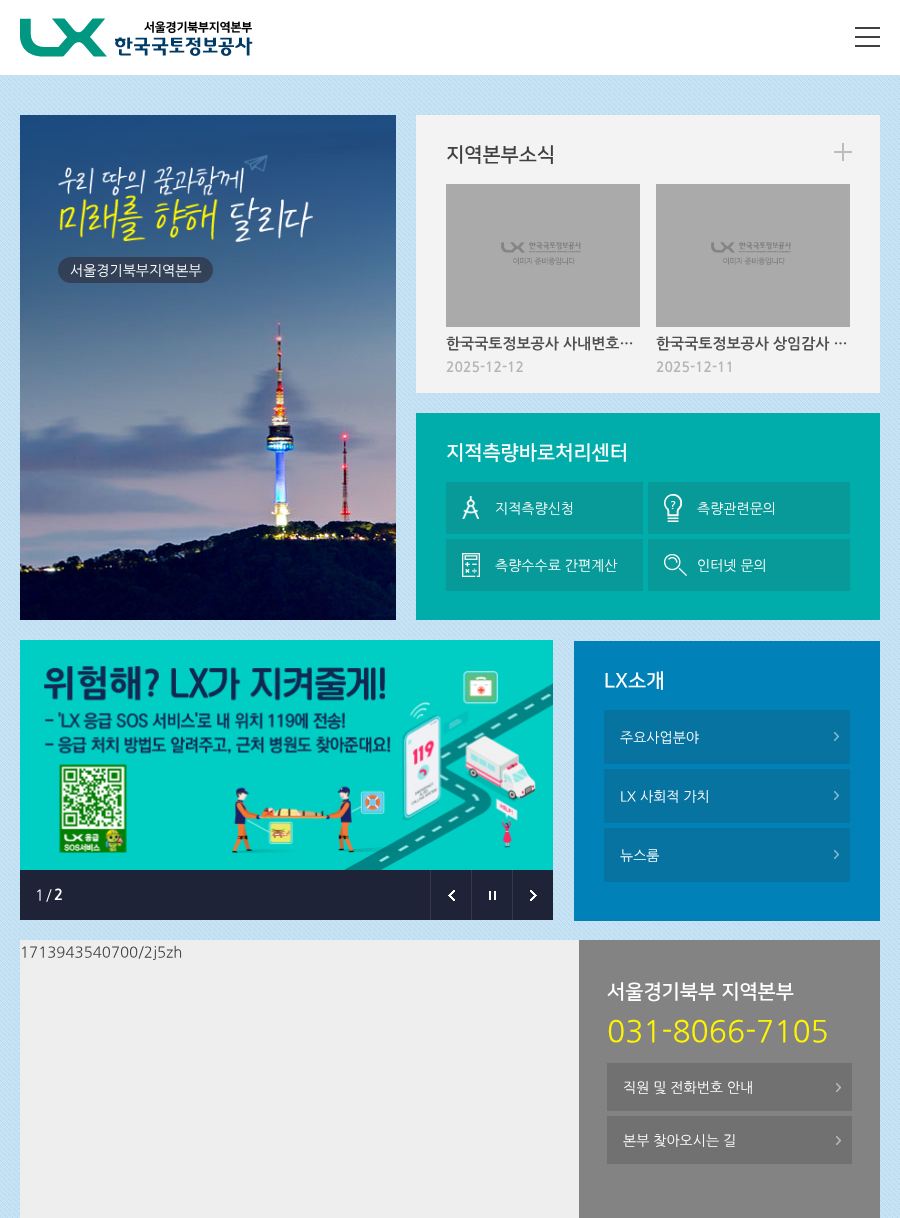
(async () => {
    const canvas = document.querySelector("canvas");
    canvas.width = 900;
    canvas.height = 1218;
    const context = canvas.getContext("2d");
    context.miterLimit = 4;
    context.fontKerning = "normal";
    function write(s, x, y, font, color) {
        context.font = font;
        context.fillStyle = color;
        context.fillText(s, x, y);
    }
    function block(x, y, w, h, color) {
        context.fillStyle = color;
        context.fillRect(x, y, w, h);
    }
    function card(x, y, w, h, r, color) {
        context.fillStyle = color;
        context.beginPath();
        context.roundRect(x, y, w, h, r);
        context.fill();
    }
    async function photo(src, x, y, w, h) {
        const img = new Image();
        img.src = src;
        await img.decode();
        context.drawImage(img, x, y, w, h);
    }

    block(0, 0, 900, 1218, "rgb(255, 255, 255)");
    await photo("media/1.png", 20, 18, 233, 39);
    await photo("media/2.png", 855, 27, 25, 20);
    await photo("media/3.png", 0, 75, 900, 1143);
    await photo("media/4.png", 20, 115, 376, 505);
    await photo("media/5.png", 58, 155, 255, 87);
    card(58, 257, 155, 26, 13, "rgba(49, 56, 75, 0.8)");
    write("서울경기북부지역본부", 70, 275, "14px NanumGothic", "rgb(255, 255, 255)");
    block(416, 115, 464, 278, "rgb(243, 243, 243)");
    write("지역본부소식", 446, 161, "bold 20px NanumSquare", "rgb(64, 64, 64)");
    await photo("media/6.png", 834, 143, 18, 18);
    block(446, 184, 194, 143, "rgb(170, 170, 170)");
    await photo("media/7.png", 501, 242, 80, 23);
    write("한국국토정보공사 사내변호…", 446, 349, "bold 15px NanumGothic", "rgb(80, 80, 80)");
    write("2025-12-12", 446, 372, "bold 14px NanumGothic", "rgb(181, 181, 181)");
    block(656, 184, 194, 143, "rgb(170, 170, 170)");
    await photo("media/7.png", 711, 242, 80, 23);
    write("한국국토정보공사 상임감사 …", 656, 349, "bold 15px NanumGothic", "rgb(80, 80, 80)");
    write("2025-12-11", 656, 372, "bold 14px NanumGothic", "rgb(181, 181, 181)");
    block(416, 413, 464, 207, "rgb(0, 173, 171)");
    write("지적측량바로처리센터", 446, 459, "bold 20px NanumSquare", "rgb(255, 255, 255)");
    block(446, 482, 197, 52, "rgb(7, 154, 152)");
    await photo("media/8.png", 462, 496, 17, 23);
    write("지적측량신청", 495, 513, "14px NanumGothic", "rgb(255, 255, 255)");
    block(648, 482, 202, 52, "rgb(7, 154, 152)");
    await photo("media/9.png", 664, 494, 18, 28);
    write("측량관련문의", 697, 513, "14px NanumGothic", "rgb(255, 255, 255)");
    block(446, 539, 197, 52, "rgb(7, 154, 152)");
    await photo("media/10.png", 462, 553, 18, 24);
    write("측량수수료 간편계산", 495, 570, "14px NanumGothic", "rgb(255, 255, 255)");
    block(648, 539, 202, 52, "rgb(7, 154, 152)");
    await photo("media/11.png", 664, 554, 23, 22);
    write("인터넷 문의", 697, 570, "14px NanumGothic", "rgb(255, 255, 255)");
    block(574, 641, 306, 280, "rgb(0, 130, 185)");
    write("LX소개", 604, 687, "bold 20px NanumSquare", "rgb(255, 255, 255)");
    block(604, 710, 246, 54, "rgb(6, 115, 160)");
    await photo("media/12.png", 834, 732, 5, 9);
    write("주요사업분야", 620, 742, "14px NanumGothic", "rgb(255, 255, 255)");
    block(604, 769, 246, 54, "rgb(6, 115, 160)");
    await photo("media/12.png", 834, 791, 5, 9);
    write("LX 사회적 가치", 620, 801, "14px NanumGothic", "rgb(255, 255, 255)");
    block(604, 828, 246, 54, "rgb(6, 115, 160)");
    await photo("media/12.png", 834, 850, 5, 9);
    write("뉴스룸", 620, 860, "14px NanumGothic", "rgb(255, 255, 255)");
    block(20, 870, 533, 50, "rgb(30, 35, 55)");
    await photo("media/13.png", 20, 640, 533, 230);
    context.letterSpacing = "2px";
    write("1/", 35, 900, "15px NanumGothic", "rgb(255, 255, 255)");
    write("2", 54, 900, "bold 15px NanumGothic", "rgb(255, 255, 255)");
    await photo("media/14.png", 448, 890, 7, 11);
    block(430, 870, 1, 50, "rgb(53, 57, 75)");
    await photo("media/15.png", 489, 891, 7, 9);
    block(471, 870, 1, 50, "rgb(53, 57, 75)");
    await photo("media/16.png", 530, 890, 7, 11);
    block(512, 870, 1, 50, "rgb(53, 57, 75)");
    block(20, 940, 559, 278, "rgb(238, 238, 238)");
    context.letterSpacing = "0px";
    write("1713943540700/2j5zh", 20, 957, "15px NanumGothic", "rgb(64, 64, 64)");
    block(579, 940, 301, 278, "rgb(132, 131, 131)");
    write("서울경기북부 지역본부", 607, 998, "bold 20px NanumSquare", "rgb(255, 255, 255)");
    write("031-8066-7105", 607, 1041, "30px NanumGothic", "rgb(255, 245, 0)");
    block(607, 1063, 245, 48, "rgb(114, 113, 113)");
    await photo("media/17.png", 836, 1083, 5, 9);
    write("직원 및 전화번호 안내", 623, 1092, "14px NanumGothic", "rgb(255, 255, 255)");
    block(607, 1116, 245, 48, "rgb(114, 113, 113)");
    await photo("media/17.png", 836, 1136, 5, 9);
    write("본부 찾아오시는 길", 623, 1145, "14px NanumGothic", "rgb(255, 255, 255)");
})();
